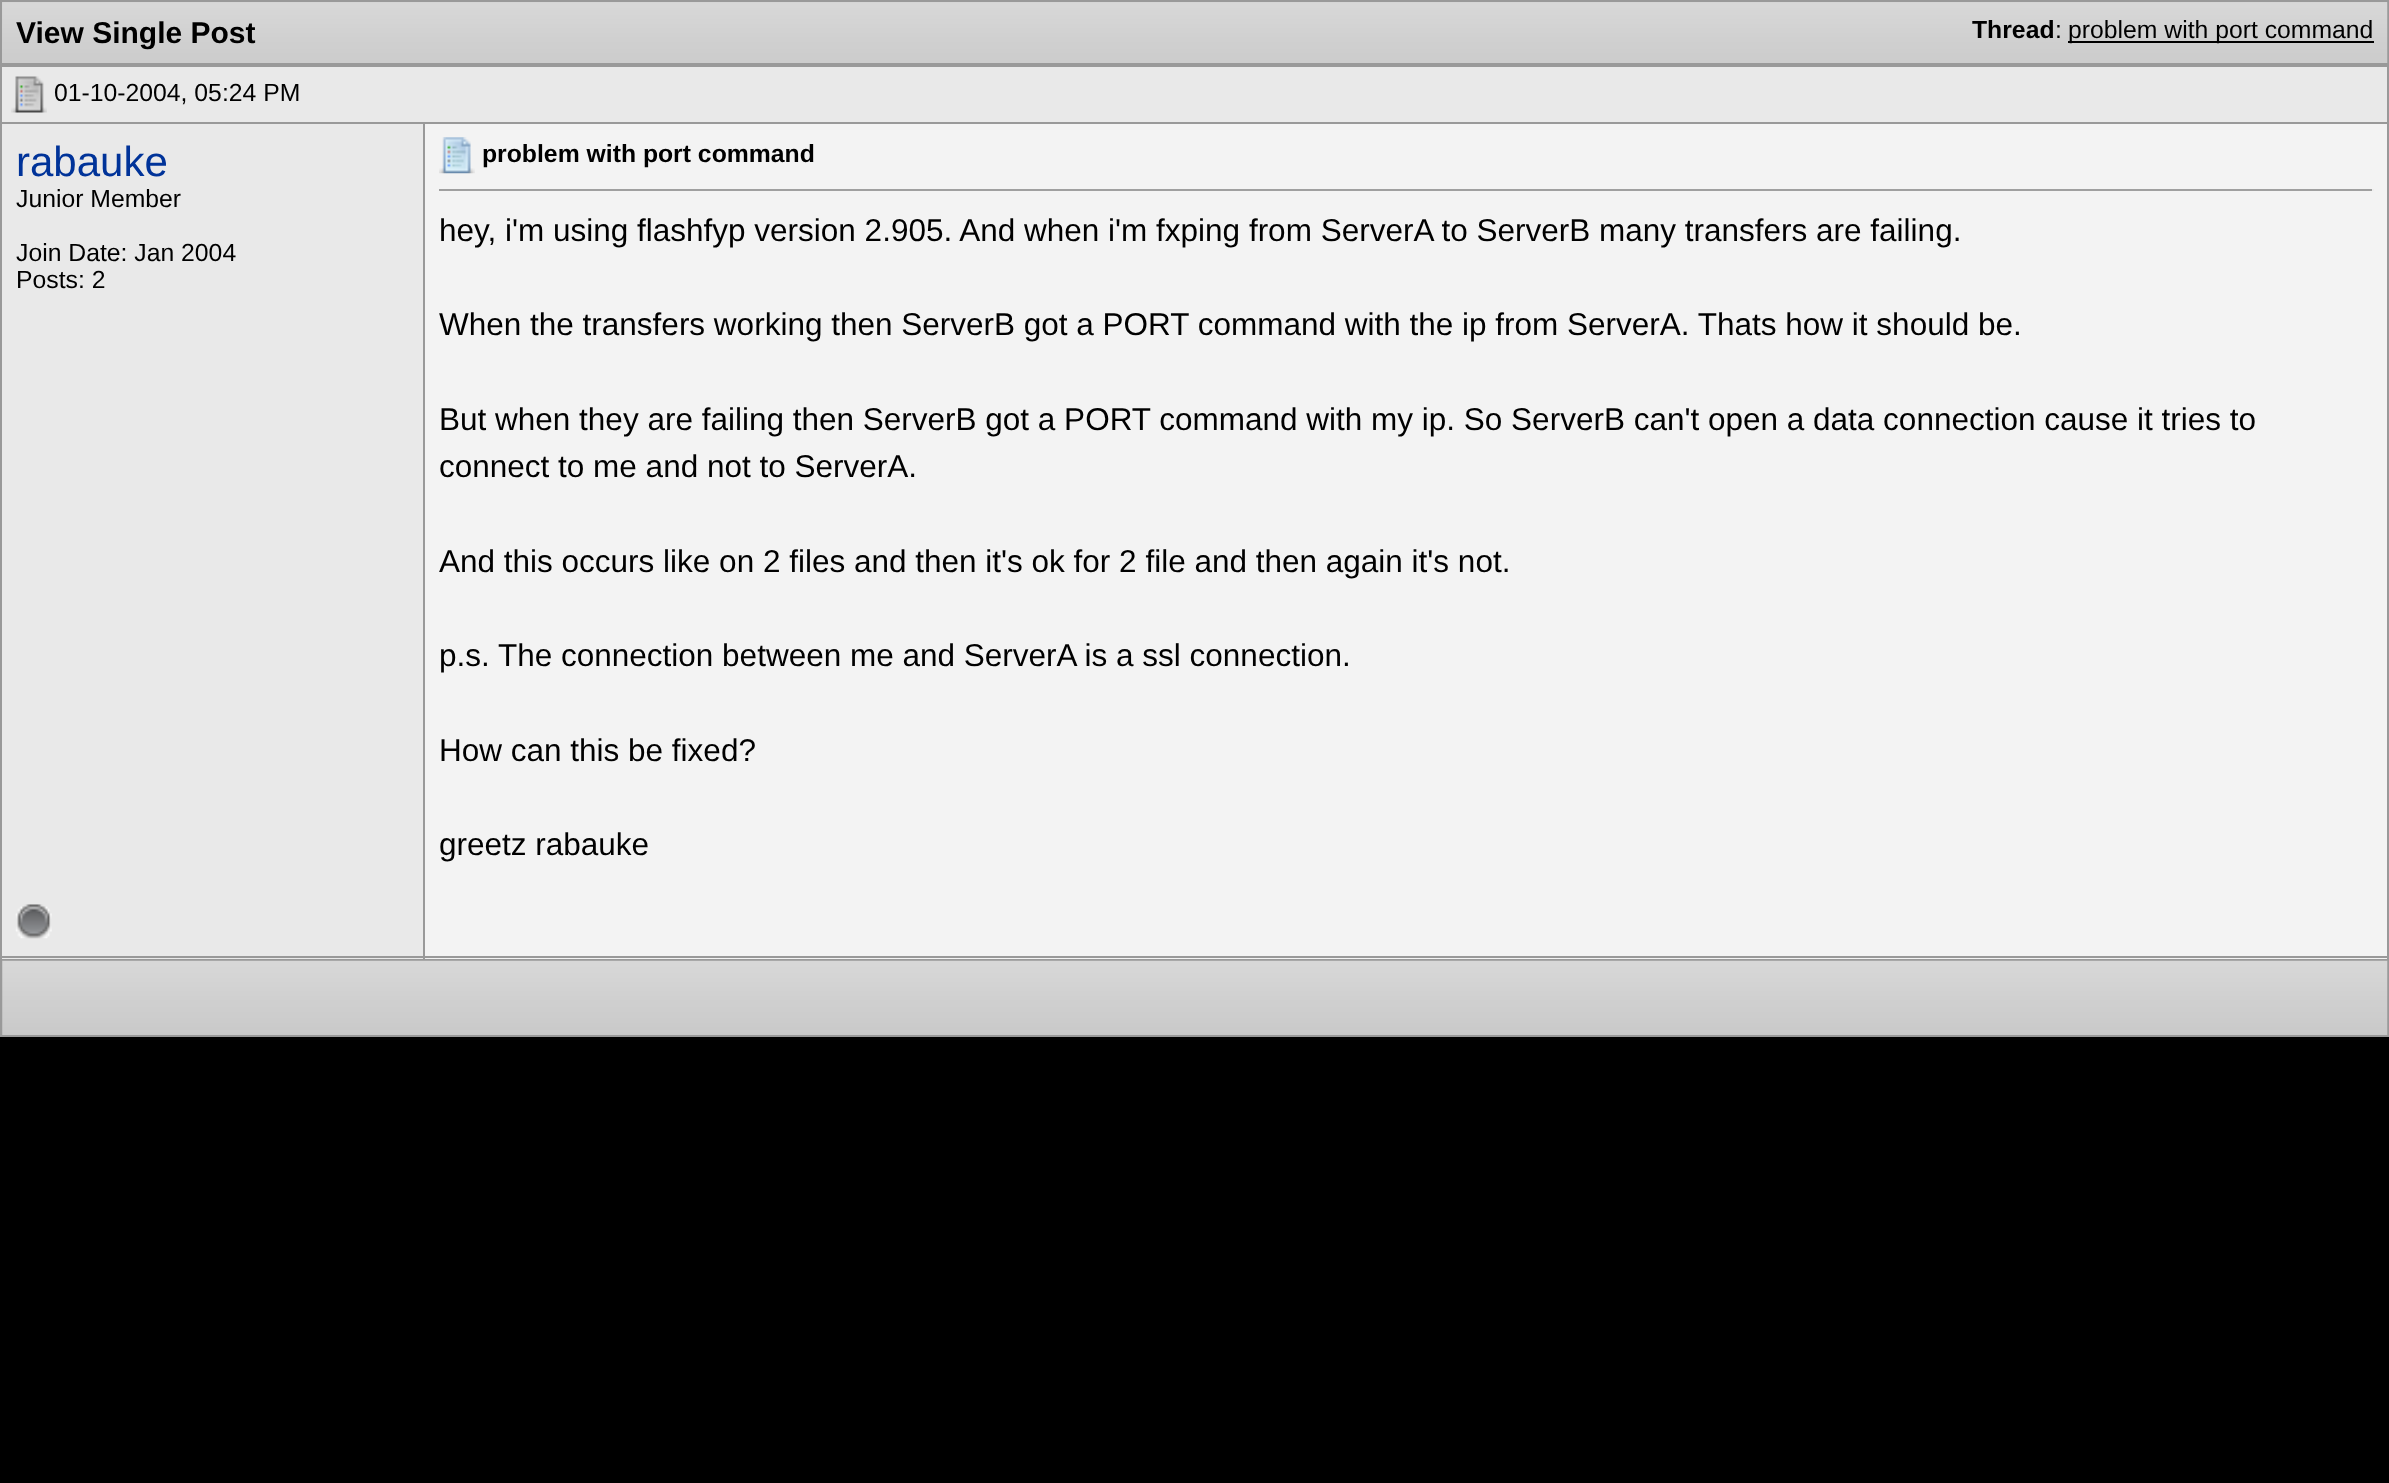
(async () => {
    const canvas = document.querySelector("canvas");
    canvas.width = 2389;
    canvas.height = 1483;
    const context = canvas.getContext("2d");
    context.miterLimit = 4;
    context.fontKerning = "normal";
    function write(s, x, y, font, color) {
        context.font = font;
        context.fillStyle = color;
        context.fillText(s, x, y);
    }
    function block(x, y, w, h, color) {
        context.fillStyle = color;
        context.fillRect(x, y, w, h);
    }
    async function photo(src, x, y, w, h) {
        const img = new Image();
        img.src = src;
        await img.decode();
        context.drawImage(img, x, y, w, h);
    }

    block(0, 0, 2389, 1483, "rgb(0, 0, 0)");
    block(0, 0, 2389, 65, "rgb(153, 153, 153)");
    block(2, 2, 2385, 61, "rgb(204, 204, 204)");
    await photo("media/1.png", 2, 2, 2386, 61);
    write("View Single Post", 16, 43, "bold 30px Liberation Sans", "rgb(0, 0, 0)");
    write("Thread", 1972, 38, "bold 24.75px Liberation Sans", "rgb(0, 0, 0)");
    write(":", 2055, 38, "24.75px Liberation Sans", "rgb(0, 0, 0)");
    block(2068, 41, 306, 2, "rgb(0, 0, 0)");
    write("problem with port command", 2068, 38, "24.75px Liberation Sans", "rgb(0, 0, 0)");
    block(2, 67, 2385, 55, "rgb(233, 233, 233)");
    block(0, 65, 2389, 2, "rgb(153, 153, 153)");
    block(0, 122, 425, 2, "rgb(153, 153, 153)");
    block(0, 65, 2, 817, "rgb(153, 153, 153)");
    await photo("media/2.png", 11, 76, 36, 37);
    write("01-10-2004, 05:24 PM", 54, 101, "24.75px Liberation Sans", "rgb(0, 0, 0)");
    block(2387, 65, 2, 894, "rgb(153, 153, 153)");
    block(425, 122, 1964, 2, "rgb(153, 153, 153)");
    block(2, 124, 421, 835, "rgb(233, 233, 233)");
    block(423, 124, 2, 835, "rgb(153, 153, 153)");
    write("rabauke", 16, 176, "42px Liberation Sans", "rgb(0, 51, 153)");
    write("Junior Member", 16, 207, "24.75px Liberation Sans", "rgb(0, 0, 0)");
    write("Join Date: Jan 2004", 16, 261, "24.75px Liberation Sans", "rgb(0, 0, 0)");
    write("Posts: 2", 16, 288, "24.75px Liberation Sans", "rgb(0, 0, 0)");
    block(425, 124, 1962, 835, "rgb(243, 243, 243)");
    await photo("media/3.png", 439, 137, 36, 37);
    write("problem with port command", 482, 162, "bold 24.75px Liberation Sans", "rgb(0, 0, 0)");
    block(439, 189, 1935, 2, "rgb(159, 159, 159)");
    block(2372, 189, 2, 2, "rgb(238, 238, 238)");
    write("hey, i'm using flashfyp version 2.905. And when i'm fxping from ServerA to ServerB many transfers are failing.", 439, 241, "31.5px Liberation Sans", "rgb(0, 0, 0)");
    write("When the transfers working then ServerB got a PORT command with the ip from ServerA. Thats how it should be.", 439, 335, "31.5px Liberation Sans", "rgb(0, 0, 0)");
    write("But when they are failing then ServerB got a PORT command with my ip. So ServerB can't open a data connection cause it tries to", 439, 430, "31.5px Liberation Sans", "rgb(0, 0, 0)");
    write("connect to me and not to ServerA.", 439, 477, "31.5px Liberation Sans", "rgb(0, 0, 0)");
    write("And this occurs like on 2 files and then it's ok for 2 file and then again it's not.", 439, 572, "31.5px Liberation Sans", "rgb(0, 0, 0)");
    write("p.s. The connection between me and ServerA is a ssl connection.", 439, 666, "31.5px Liberation Sans", "rgb(0, 0, 0)");
    write("How can this be fixed?", 439, 761, "31.5px Liberation Sans", "rgb(0, 0, 0)");
    write("greetz rabauke", 439, 855, "31.5px Liberation Sans", "rgb(0, 0, 0)");
    block(0, 956, 2389, 2, "rgb(153, 153, 153)");
    block(0, 882, 2, 77, "rgb(153, 153, 153)");
    await photo("media/4.png", 15, 904, 37, 35);
    block(0, 959, 2389, 78, "rgb(153, 153, 153)");
    await photo("media/5.png", 2, 960, 2386, 75);
})();
